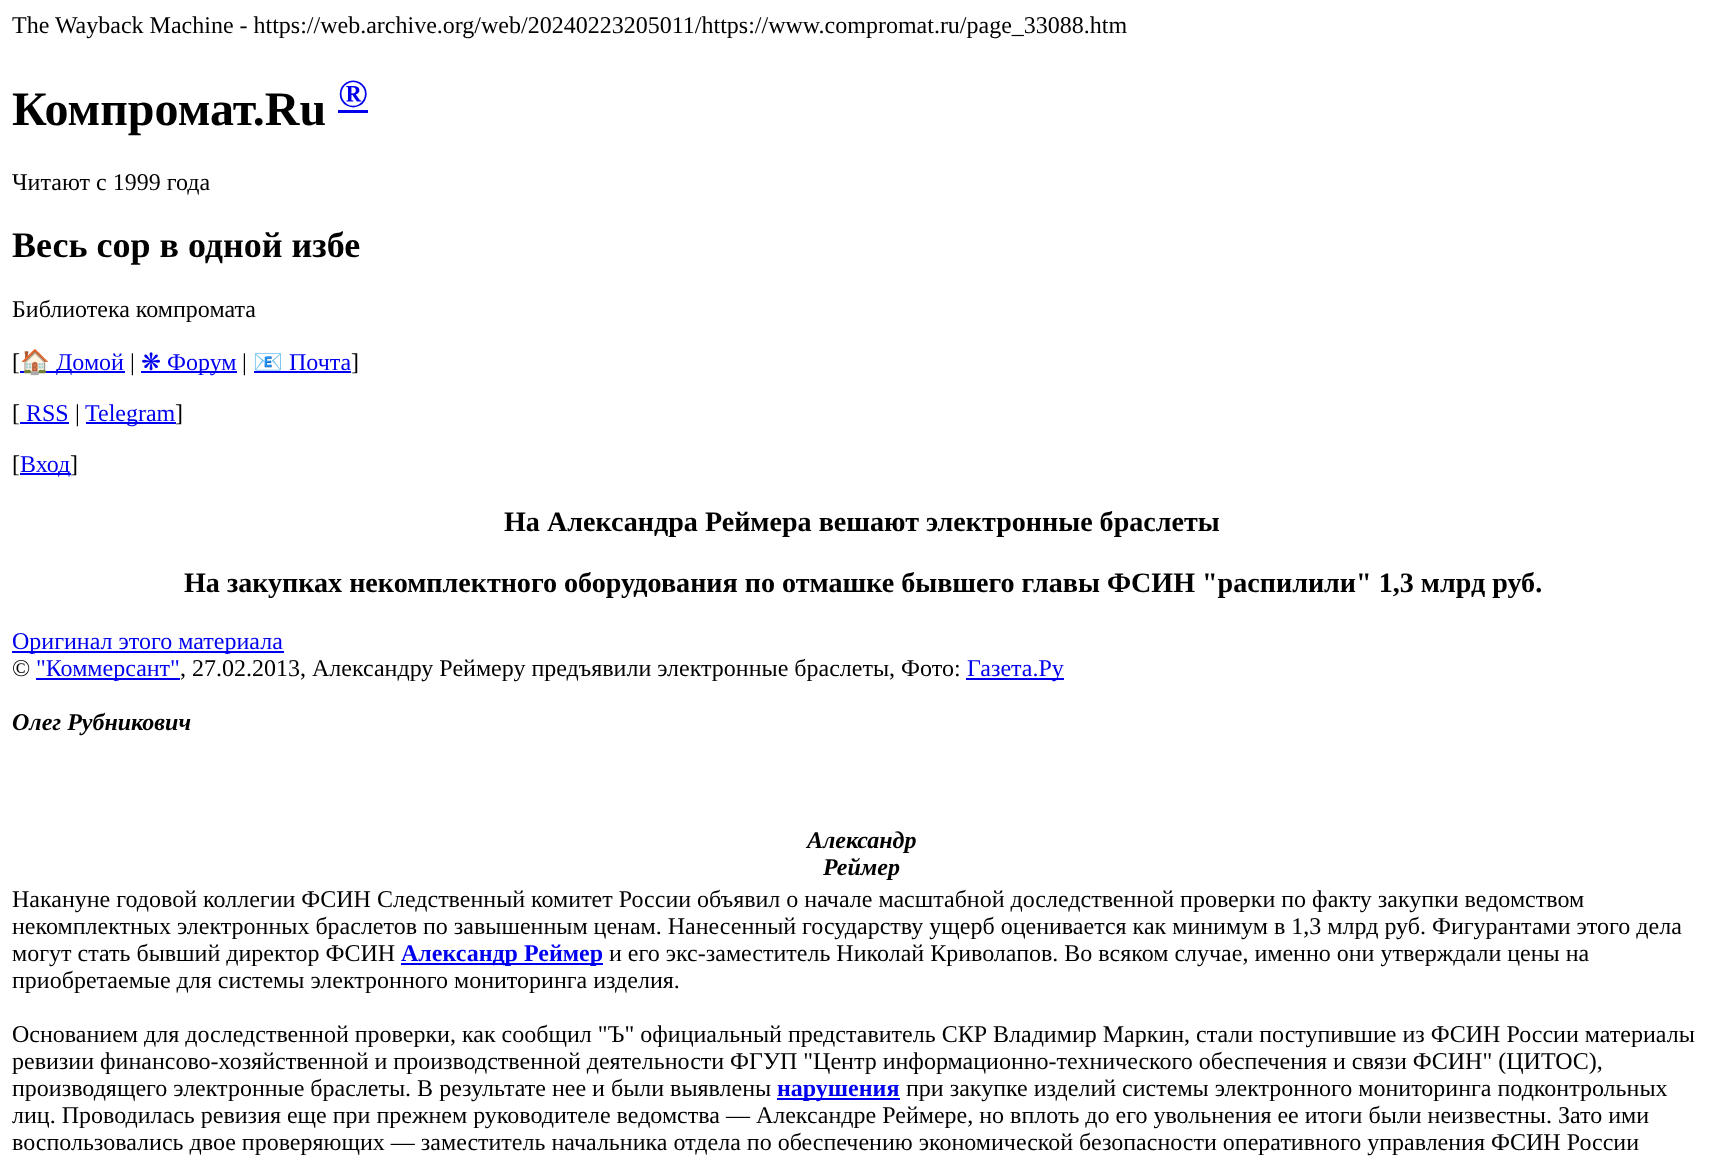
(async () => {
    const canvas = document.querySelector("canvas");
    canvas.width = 1723;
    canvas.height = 1156;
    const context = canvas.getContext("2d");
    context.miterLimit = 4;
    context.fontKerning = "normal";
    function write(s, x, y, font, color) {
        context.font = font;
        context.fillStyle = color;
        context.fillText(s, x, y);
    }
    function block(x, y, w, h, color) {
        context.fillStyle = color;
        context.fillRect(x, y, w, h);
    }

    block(0, 0, 1723, 1156, "rgb(255, 255, 255)");
    write("The Wayback Machine - https://web.archive.org/web/20240223205011/https://www.compromat.ru/page_33088.htm", 12, 33, "24px Liberation Serif", "rgb(0, 0, 0)");
    write("Компромат.Ru", 12, 125, "bold 48px Liberation Serif", "rgb(0, 0, 0)");
    write("®", 338, 107, "bold 40px Liberation Serif", "rgb(0, 0, 238)");
    block(338, 110, 30, 3, "rgb(0, 0, 238)");
    write("Читают с 1999 года", 12, 190, "24px Liberation Serif", "rgb(0, 0, 0)");
    write("Весь сор в одной избе", 12, 257, "bold 36px Liberation Serif", "rgb(0, 0, 0)");
    write("Библиотека компромата", 12, 317, "24px Liberation Serif", "rgb(0, 0, 0)");
    write("[", 12, 370, "24px Liberation Serif", "rgb(0, 0, 0)");
    block(20, 371, 105, 2, "rgb(0, 0, 238)");
    write("🏠", 20, 370, "24px Noto Color Emoji", "rgb(0, 0, 238)");
    write("Домой", 56, 370, "24px Liberation Serif", "rgb(0, 0, 238)");
    write("|", 130, 370, "24px Liberation Serif", "rgb(0, 0, 0)");
    write("❋", 141, 370, "24px DejaVu Sans", "rgb(0, 0, 238)");
    block(141, 371, 96, 2, "rgb(0, 0, 238)");
    write("Форум", 167, 370, "24px Liberation Serif", "rgb(0, 0, 238)");
    write("|", 242, 370, "24px Liberation Serif", "rgb(0, 0, 0)");
    block(254, 371, 97, 2, "rgb(0, 0, 238)");
    write("📧", 253, 370, "24px Noto Color Emoji", "rgb(0, 0, 238)");
    write("Почта", 289, 370, "24px Liberation Serif", "rgb(0, 0, 238)");
    write("]", 351, 370, "24px Liberation Serif", "rgb(0, 0, 0)");
    write("[", 12, 421, "24px Liberation Serif", "rgb(0, 0, 0)");
    write("RSS", 26, 421, "24px Liberation Serif", "rgb(0, 0, 238)");
    block(20, 422, 49, 2, "rgb(0, 0, 238)");
    write("|", 75, 421, "24px Liberation Serif", "rgb(0, 0, 0)");
    block(86, 422, 90, 2, "rgb(0, 0, 238)");
    write("Telegram", 85, 421, "24px Liberation Serif", "rgb(0, 0, 238)");
    write("]", 175, 421, "24px Liberation Serif", "rgb(0, 0, 0)");
    write("[", 12, 472, "24px Liberation Serif", "rgb(0, 0, 0)");
    block(20, 473, 51, 2, "rgb(0, 0, 238)");
    write("Вход", 20, 472, "24px Liberation Serif", "rgb(0, 0, 238)");
    write("]", 70, 472, "24px Liberation Serif", "rgb(0, 0, 0)");
    write("На Александра Реймера вешают электронные браслеты", 504, 531, "bold 28.1px Liberation Serif", "rgb(0, 0, 0)");
    write("На закупках некомплектного оборудования по отмашке бывшего главы ФСИН \"распилили\" 1,3 млрд руб.", 184, 592, "bold 28.1px Liberation Serif", "rgb(0, 0, 0)");
    block(12, 651, 272, 2, "rgb(0, 0, 238)");
    write("Оригинал этого материала", 12, 649, "24px Liberation Serif", "rgb(0, 0, 238)");
    write("©", 12, 676, "24px Liberation Serif", "rgb(0, 0, 0)");
    block(36, 678, 144, 2, "rgb(0, 0, 238)");
    write("\"Коммерсант\"", 36, 676, "24px Liberation Serif", "rgb(0, 0, 238)");
    write(", 27.02.2013, Александру Реймеру предъявили электронные браслеты, Фото:", 180, 676, "24px Liberation Serif", "rgb(0, 0, 0)");
    block(966, 678, 98, 2, "rgb(0, 0, 238)");
    write("Газета.Ру", 967, 676, "24px Liberation Serif", "rgb(0, 0, 238)");
    write("Олег Рубникович", 12, 730, "italic bold 24px Liberation Serif", "rgb(0, 0, 0)");
    write("Александр", 807, 848, "italic bold 24px Liberation Serif", "rgb(0, 0, 0)");
    write("Реймер", 823, 875, "italic bold 24px Liberation Serif", "rgb(0, 0, 0)");
    write("Накануне годовой коллегии ФСИН Следственный комитет России объявил о начале масштабной доследственной проверки по факту закупки ведомством", 12, 907, "24px Liberation Serif", "rgb(0, 0, 0)");
    write("некомплектных электронных браслетов по завышенным ценам. Нанесенный государству ущерб оценивается как минимум в 1,3 млрд руб. Фигурантами этого дела", 12, 934, "24px Liberation Serif", "rgb(0, 0, 0)");
    write("могут стать бывший директор ФСИН", 12, 961, "24px Liberation Serif", "rgb(0, 0, 0)");
    block(401, 963, 202, 2, "rgb(0, 0, 238)");
    write("Александр Реймер", 401, 961, "bold 24px Liberation Serif", "rgb(0, 0, 238)");
    write("и его экс-заместитель Николай Криволапов. Во всяком случае, именно они утверждали цены на", 609, 961, "24px Liberation Serif", "rgb(0, 0, 0)");
    write("приобретаемые для системы электронного мониторинга изделия.", 12, 988, "24px Liberation Serif", "rgb(0, 0, 0)");
    write("Основанием для доследственной проверки, как сообщил \"Ъ\" официальный представитель СКР Владимир Маркин, стали поступившие из ФСИН России материалы", 12, 1042, "24px Liberation Serif", "rgb(0, 0, 0)");
    write("ревизии финансово-хозяйственной и производственной деятельности ФГУП \"Центр информационно-технического обеспечения и связи ФСИН\" (ЦИТОС),", 12, 1069, "24px Liberation Serif", "rgb(0, 0, 0)");
    write("производящего электронные браслеты. В результате нее и были выявлены", 12, 1096, "24px Liberation Serif", "rgb(0, 0, 0)");
    block(777, 1098, 123, 2, "rgb(0, 0, 238)");
    write("нарушения", 777, 1096, "bold 24px Liberation Serif", "rgb(0, 0, 238)");
    write("при закупке изделий системы электронного мониторинга подконтрольных", 906, 1096, "24px Liberation Serif", "rgb(0, 0, 0)");
    write("лиц. Проводилась ревизия еще при прежнем руководителе ведомства — Александре Реймере, но вплоть до его увольнения ее итоги были неизвестны. Зато ими", 12, 1123, "24px Liberation Serif", "rgb(0, 0, 0)");
    write("воспользовались двое проверяющих — заместитель начальника отдела по обеспечению экономической безопасности оперативного управления ФСИН России", 12, 1150, "24px Liberation Serif", "rgb(0, 0, 0)");
})();
